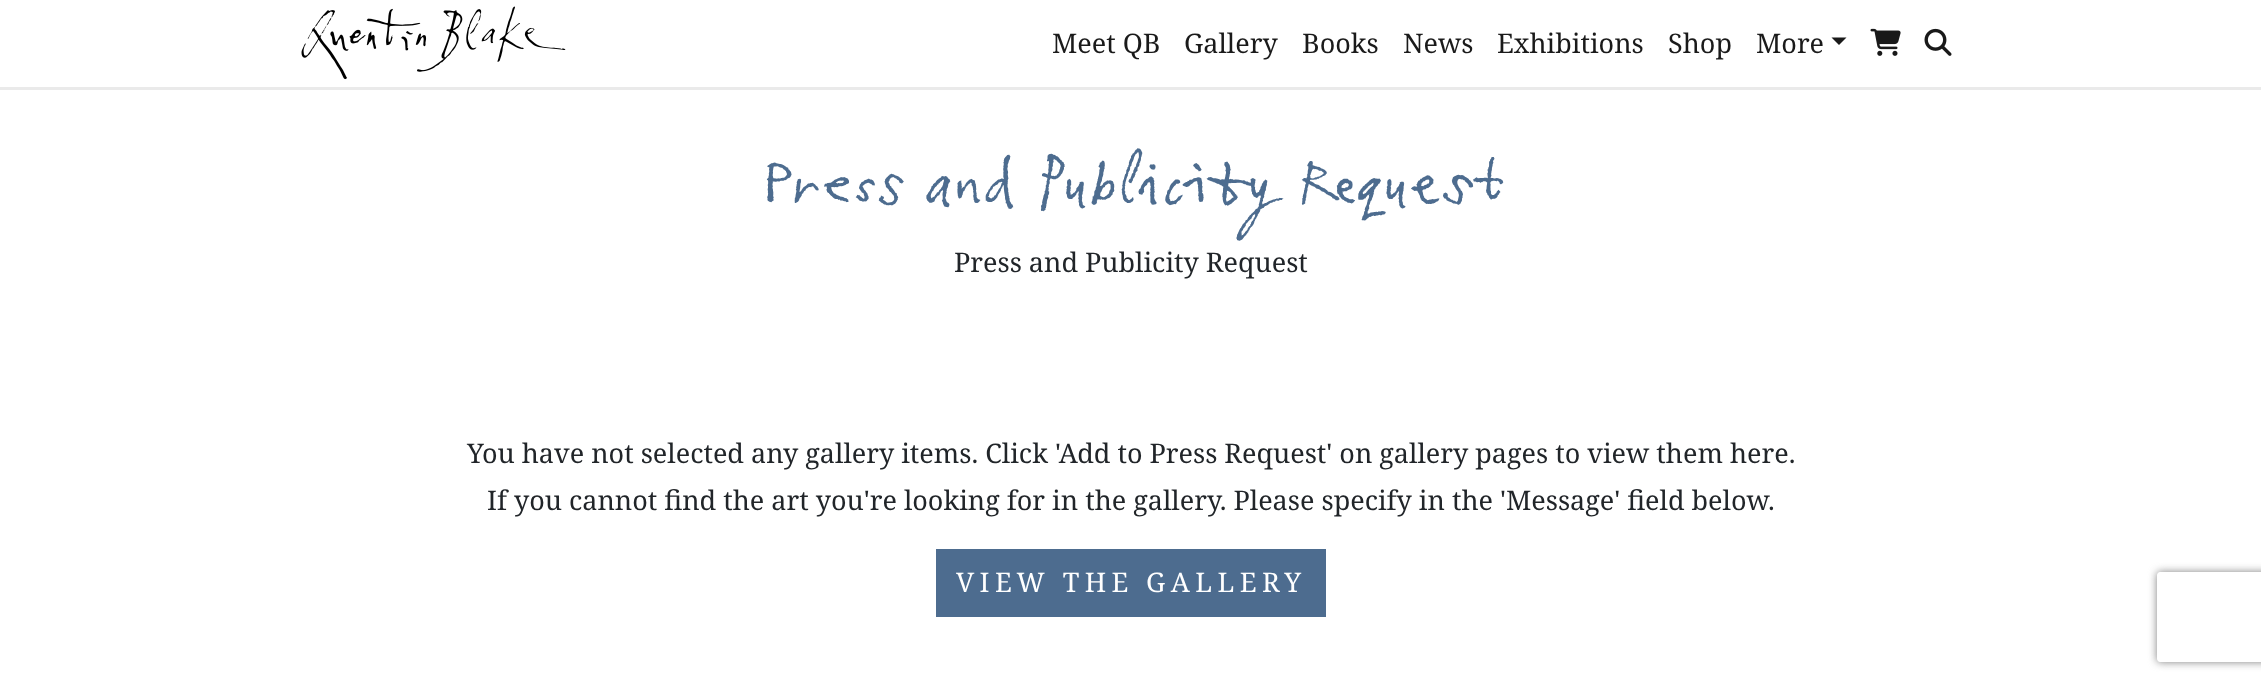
(async () => {
    const canvas = document.querySelector("canvas");
    canvas.width = 2261;
    canvas.height = 682;
    const context = canvas.getContext("2d");
    context.miterLimit = 4;
    context.fontKerning = "normal";
    function write(s, x, y, font, color) {
        context.font = font;
        context.fillStyle = color;
        context.fillText(s, x, y);
    }
    function block(x, y, w, h, color) {
        context.fillStyle = color;
        context.fillRect(x, y, w, h);
    }
    async function photo(src, x, y, w, h) {
        const img = new Image();
        img.src = src;
        await img.decode();
        context.drawImage(img, x, y, w, h);
    }

    block(0, 0, 2261, 682, "rgb(255, 255, 255)");
    block(0, 87, 2261, 3, "rgb(234, 234, 234)");
    await photo("media/1.png", 301, 6, 265, 74);
    write("Meet QB", 1052, 53, "27px Noto Serif", "rgb(26, 26, 26)");
    write("Gallery", 1184, 53, "27px Noto Serif", "rgb(26, 26, 26)");
    write("Books", 1302, 53, "27px Noto Serif", "rgb(26, 26, 26)");
    write("News", 1403, 53, "27px Noto Serif", "rgb(26, 26, 26)");
    write("Exhibitions", 1497, 53, "27px Noto Serif", "rgb(26, 26, 26)");
    write("Shop", 1668, 53, "27px Noto Serif", "rgb(26, 26, 26)");
    write("More", 1756, 53, "27px Noto Serif", "rgb(26, 26, 26)");
    context.beginPath();
    context.moveTo(1831.5, 37.5);
    context.lineTo(1846.5, 37.5);
    context.lineTo(1839, 45);
    context.closePath();
    context.fill();
    await photo("media/2.png", 1870, 28, 31, 28);
    await photo("media/3.png", 1924, 28, 28, 28);
    write("Press and Publicity Request", 760, 201, "54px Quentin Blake", "rgb(77, 108, 143)");
    write("Press and Publicity Request", 954, 272, "27px Noto Serif", "rgb(33, 37, 41)");
    write("You have not selected any gallery items. Click 'Add to Press Request' on gallery pages to view them here.", 467, 463, "27px Noto Serif", "rgb(33, 37, 41)");
    write("If you cannot find the art you're looking for in the gallery. Please specify in the 'Message' field below.", 487, 510, "27px Noto Serif", "rgb(33, 37, 41)");
    block(936, 549, 390, 68, "rgb(77, 108, 143)");
    context.letterSpacing = "5.4px";
    write("VIEW THE GALLERY", 956, 592, "27px Noto Serif", "rgb(255, 255, 255)");
    context.save();
    context.beginPath();
    context.moveTo(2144, 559);
    context.lineTo(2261, 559);
    context.lineTo(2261, 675);
    context.lineTo(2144, 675);
    context.closePath();
    context.moveTo(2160, 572);
    context.lineTo(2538, 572);
    context.bezierCurveTo(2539.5, 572, 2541, 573.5, 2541, 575);
    context.lineTo(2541, 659);
    context.bezierCurveTo(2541, 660.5, 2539.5, 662, 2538, 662);
    context.lineTo(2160, 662);
    context.bezierCurveTo(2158.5, 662, 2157, 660.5, 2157, 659);
    context.lineTo(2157, 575);
    context.bezierCurveTo(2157, 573.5, 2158.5, 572, 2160, 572);
    context.closePath();
    context.clip("evenodd");
    context.fillStyle = "rgb(128, 128, 128)";
    context.filter = "blur(4px)";
    context.beginPath();
    context.roundRect(2157, 572, 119, 90, 3);
    context.fill();
    context.filter = "none";
    context.restore();
})();
